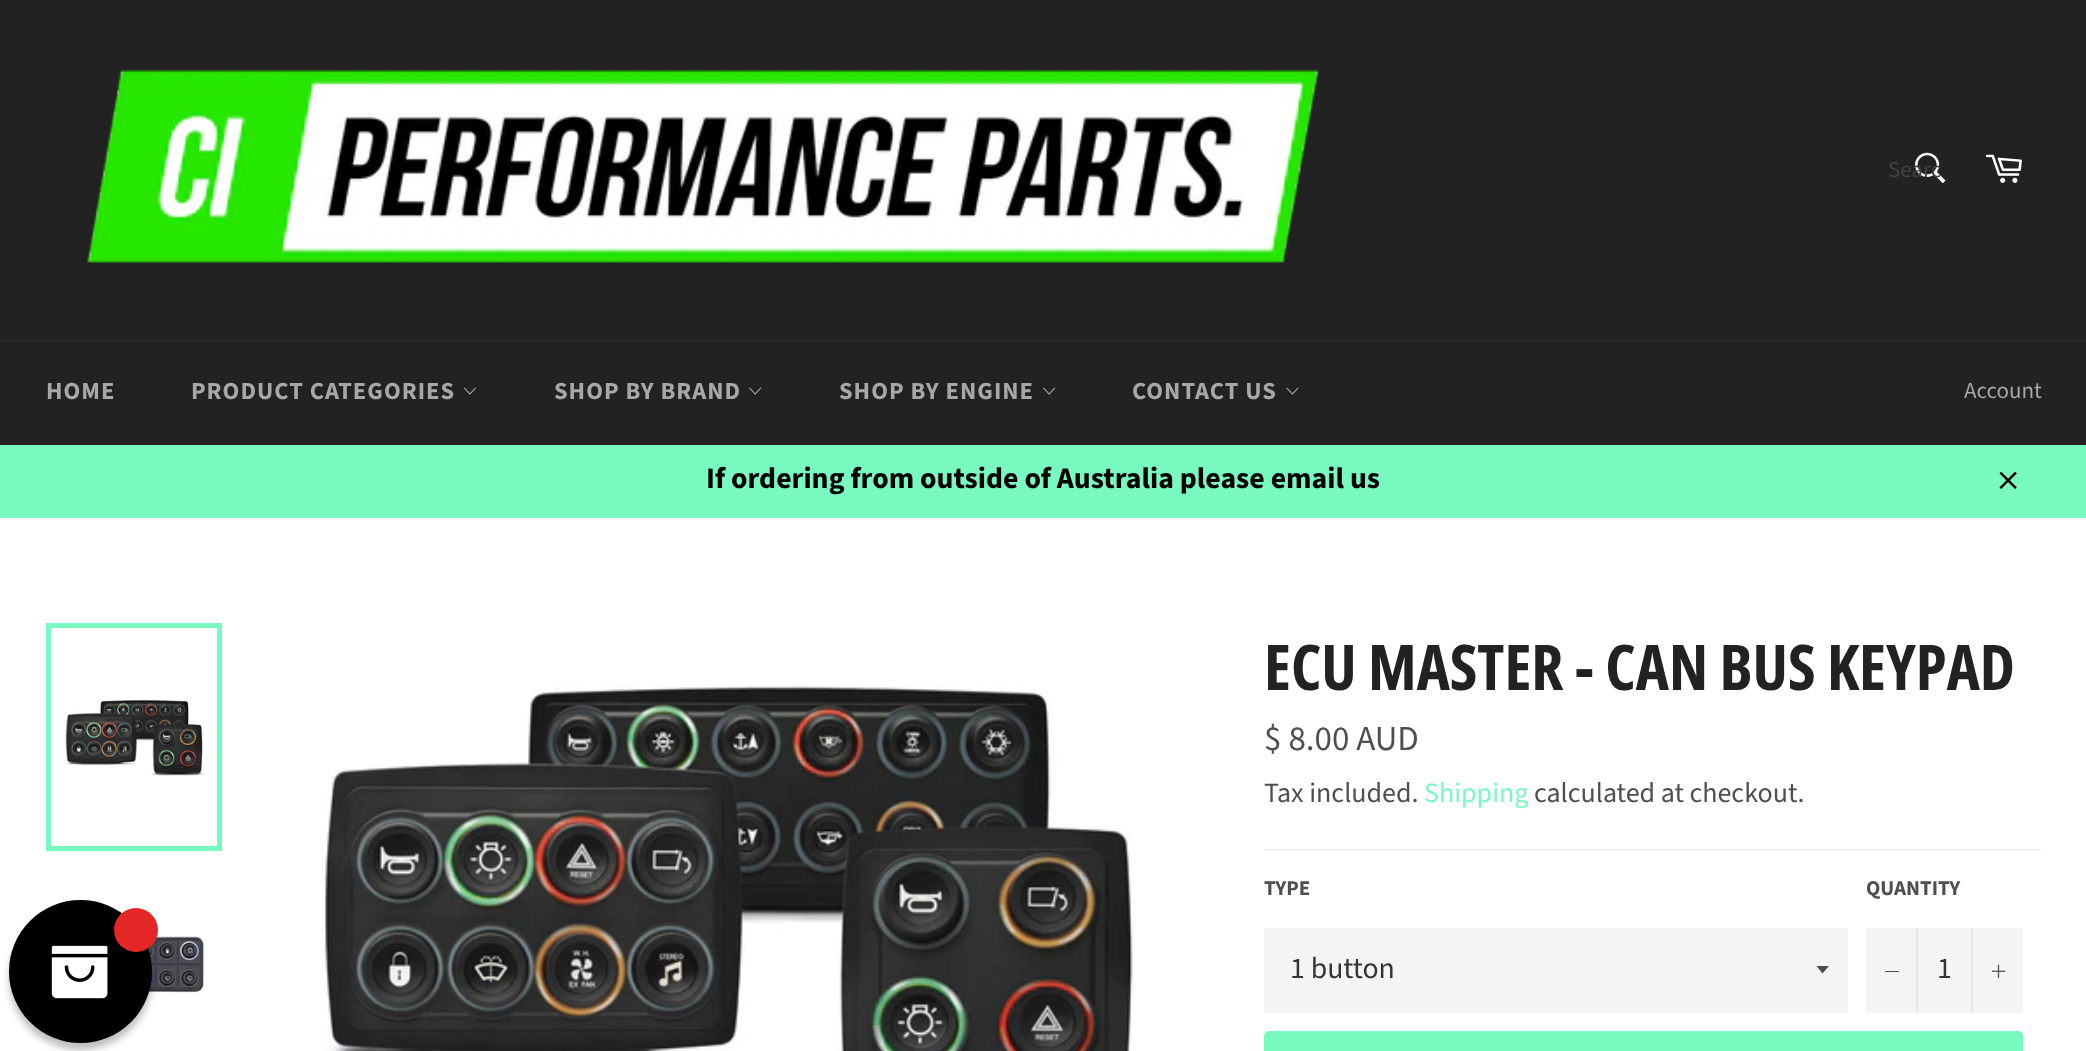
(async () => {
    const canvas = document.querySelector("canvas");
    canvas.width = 2086;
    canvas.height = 1051;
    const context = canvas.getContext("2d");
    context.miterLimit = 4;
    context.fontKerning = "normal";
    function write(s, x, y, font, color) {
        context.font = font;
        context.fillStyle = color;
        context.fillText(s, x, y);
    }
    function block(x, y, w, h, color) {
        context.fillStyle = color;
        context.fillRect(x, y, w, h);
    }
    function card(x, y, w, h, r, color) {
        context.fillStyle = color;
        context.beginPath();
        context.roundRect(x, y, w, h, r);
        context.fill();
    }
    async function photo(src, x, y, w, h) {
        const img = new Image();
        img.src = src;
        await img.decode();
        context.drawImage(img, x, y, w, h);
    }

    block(0, 0, 2086, 1051, "rgb(34, 34, 34)");
    await photo("media/1.png", 87, 69, 1233, 194);
    await photo("media/2.png", 1915, 152, 31, 32);
    write("Searc", 1888, 177, "23px Source Sans Pro", "rgb(65, 65, 65)");
    await photo("media/3.png", 1986, 154, 36, 29);
    block(0, 340, 2086, 1, "rgb(47, 47, 47)");
    context.letterSpacing = "1px";
    write("HOME", 46, 399, "bold 24.5px Source Sans Pro", "rgb(167, 167, 167)");
    write("PRODUCT CATEGORIES", 191, 399, "bold 24.5px Source Sans Pro", "rgb(167, 167, 167)");
    await photo("media/4.png", 463, 387, 13, 8);
    write("SHOP BY BRAND", 554, 399, "bold 24.5px Source Sans Pro", "rgb(167, 167, 167)");
    await photo("media/5.png", 749, 387, 13, 8);
    write("SHOP BY ENGINE", 839, 399, "bold 24.5px Source Sans Pro", "rgb(167, 167, 167)");
    await photo("media/5.png", 1043, 387, 13, 8);
    write("CONTACT US", 1132, 399, "bold 24.5px Source Sans Pro", "rgb(167, 167, 167)");
    await photo("media/6.png", 1286, 387, 13, 8);
    context.letterSpacing = "0px";
    write("Account", 1964, 398, "23px Source Sans Pro", "rgb(167, 167, 167)");
    block(0, 445, 2086, 73, "rgb(120, 249, 192)");
    write("If ordering from outside of Australia please email us", 706, 488, "bold 29.75px Source Sans Pro", "rgb(0, 0, 0)");
    await photo("media/7.png", 1999, 471, 18, 18);
    block(0, 518, 2086, 533, "rgb(255, 255, 255)");
    await photo("media/10.png", 148, 936, 57, 57);
    context.fillStyle = "rgba(0, 0, 0, 0.25)";
    context.filter = "blur(3.5px)";
    context.beginPath();
    context.roundRect(9, 907, 143, 143, 71.5);
    context.fill();
    context.filter = "none";
    context.fillStyle = "rgb(0, 0, 0)";
    context.beginPath();
    context.arc(80.5, 971.5, 71.5, 0, Math.PI * 2);
    context.fill();
    context.fillStyle = "rgb(228, 38, 38)";
    context.beginPath();
    context.arc(136, 930, 22, 0, Math.PI * 2);
    context.fill();
    await photo("media/8.png", 51, 945, 57, 54);
    await photo("media/9.png", 64, 700, 140, 76);
    context.strokeStyle = "rgb(120, 249, 192)";
    context.lineWidth = 5;
    context.strokeRect(48.5, 625.5, 171, 223);
    await photo("media/11.png", 321, 685, 812, 366);
    write("ECU MASTER - CAN BUS KEYPAD", 1264, 690, "bold 63px Open Sans Condensed", "rgb(34, 34, 34)");
    write("$ 8.00 AUD", 1264, 750, "35px Source Sans Pro", "rgb(80, 78, 78)");
    write("Tax included.", 1264, 802, "28px Source Sans Pro", "rgb(80, 78, 78)");
    write("Shipping", 1424, 802, "28px Source Sans Pro", "rgb(120, 249, 192)");
    write("calculated at checkout.", 1534, 802, "28px Source Sans Pro", "rgb(80, 78, 78)");
    block(1264, 849, 777, 2, "rgb(240, 240, 240)");
    write("TYPE", 1264, 895, "bold 21px Source Sans Pro", "rgb(80, 78, 78)");
    block(1264, 928, 584, 85, "rgb(244, 244, 244)");
    context.fillStyle = "rgb(80, 78, 78)";
    context.beginPath();
    context.moveTo(1816.5, 966);
    context.lineTo(1822.5, 973.5);
    context.lineTo(1829, 966);
    context.closePath();
    context.fill();
    write("1 button", 1290, 978, "29.75px Source Sans Pro", "rgb(51, 51, 51)");
    write("QUANTITY", 1866, 895, "bold 21px Source Sans Pro", "rgb(80, 78, 78)");
    block(1866, 928, 157, 85, "rgb(244, 244, 244)");
    block(1916, 928, 2, 85, "rgb(231, 231, 231)");
    block(1885, 971, 14, 1, "rgb(80, 78, 78)");
    write("1", 1937, 978, "29.75px Source Sans Pro", "rgb(51, 51, 51)");
    block(1971, 928, 2, 85, "rgb(231, 231, 231)");
    await photo("media/12.png", 1992, 964, 14, 14);
    card(1264, 1031, 759, 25, 5, "rgb(120, 249, 192)");
})();
